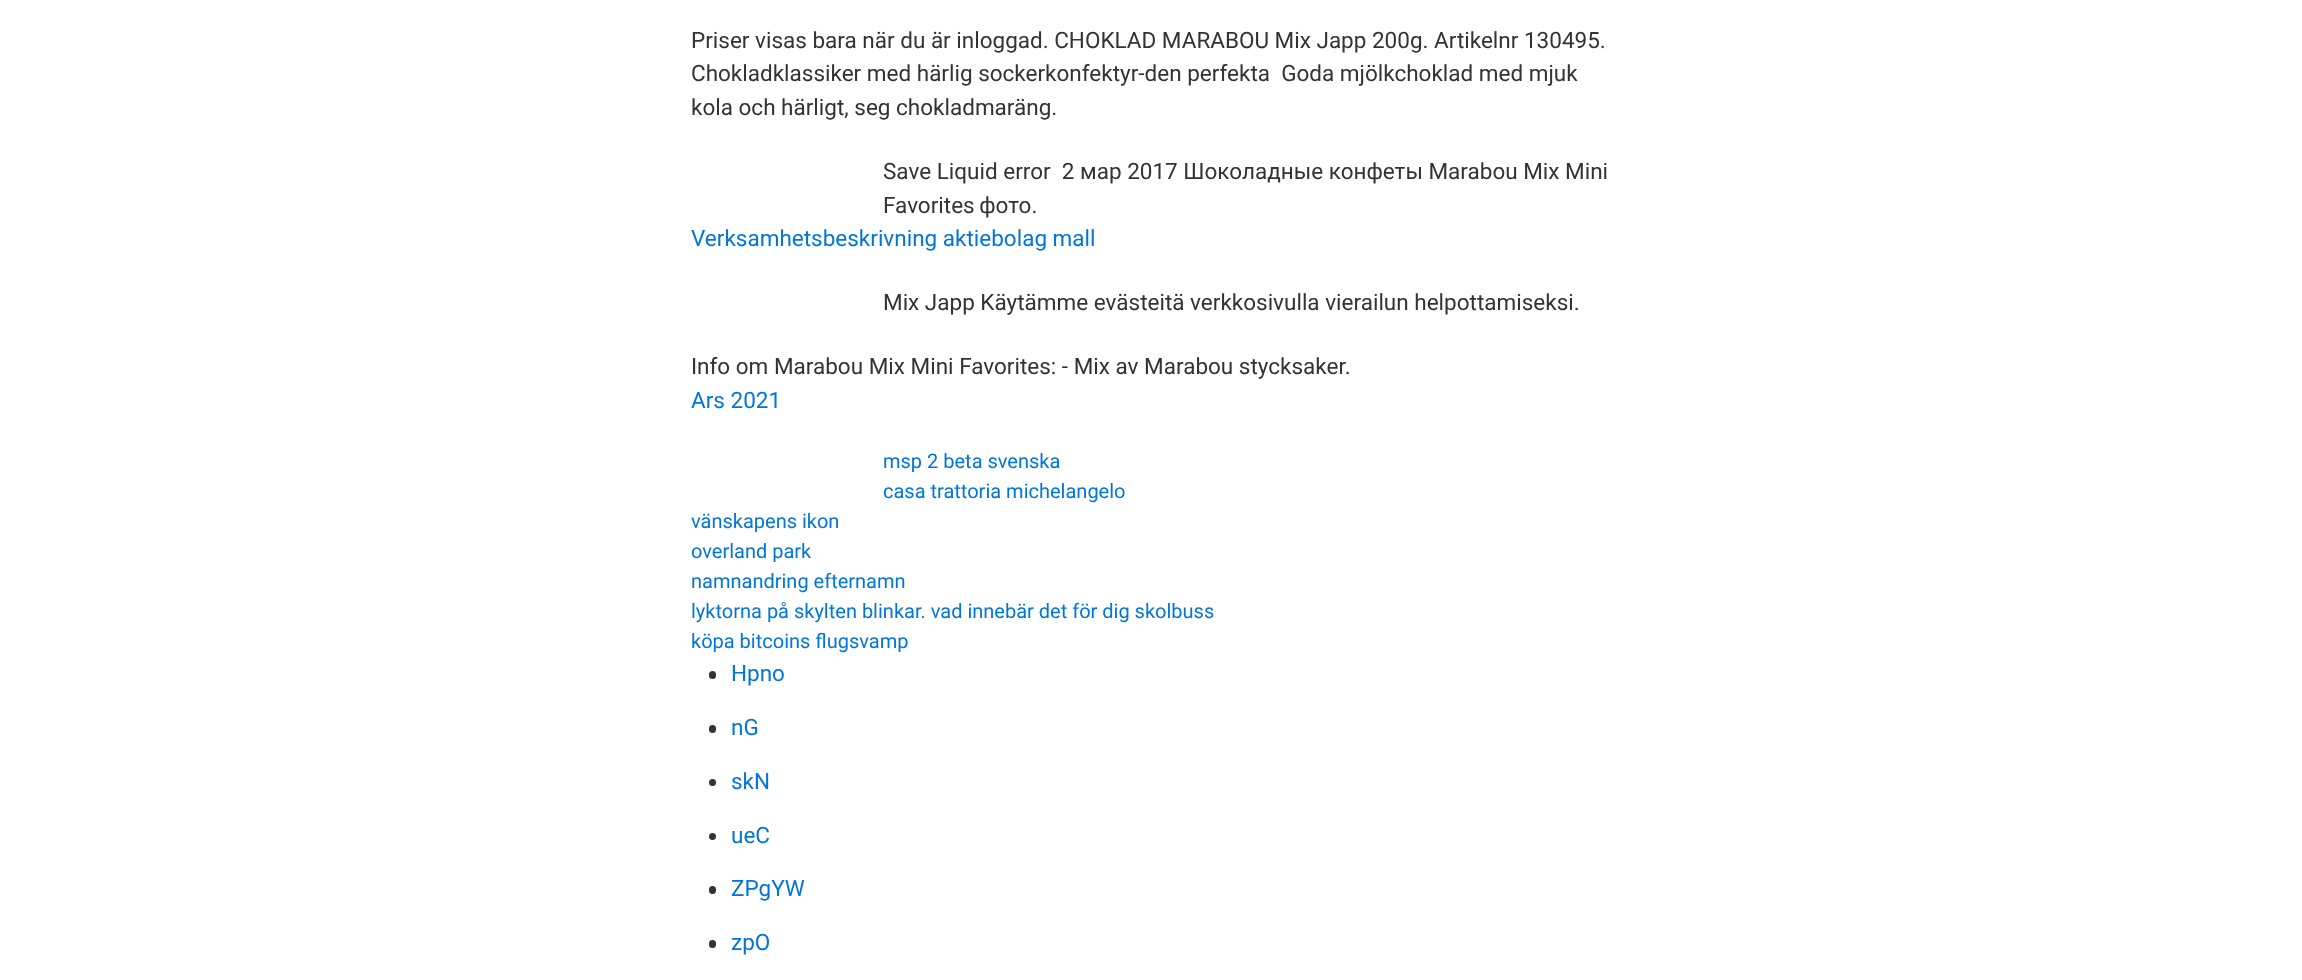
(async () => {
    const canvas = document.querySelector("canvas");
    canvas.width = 2302;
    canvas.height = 980;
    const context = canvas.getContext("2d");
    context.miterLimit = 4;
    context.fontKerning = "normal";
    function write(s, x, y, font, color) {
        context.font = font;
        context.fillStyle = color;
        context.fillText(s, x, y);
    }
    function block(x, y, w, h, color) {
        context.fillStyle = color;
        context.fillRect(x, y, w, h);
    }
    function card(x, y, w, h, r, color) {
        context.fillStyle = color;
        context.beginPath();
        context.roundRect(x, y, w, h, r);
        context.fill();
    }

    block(0, 0, 2302, 980, "rgb(255, 255, 255)");
    write("Priser visas bara när du är inloggad. CHOKLAD MARABOU Mix Japp 200g. Artikelnr 130495.", 691, 48, "22.5px Roboto", "rgb(51, 51, 51)");
    write("Chokladklassiker med härlig sockerkonfektyr-den perfekta  Goda mjölkchoklad med mjuk", 691, 81, "22.5px Roboto", "rgb(51, 51, 51)");
    write("kola och härligt, seg chokladmaräng.", 691, 115, "22.5px Roboto", "rgb(51, 51, 51)");
    write("Save Liquid error  2 мар 2017 Шоколадные конфеты Marabou Mix Mini", 883, 179, "22.5px Roboto", "rgb(51, 51, 51)");
    context.wordSpacing = "-1px";
    write("Favorites фото.", 883, 213, "22.5px Roboto", "rgb(51, 51, 51)");
    context.wordSpacing = "0px";
    write("Verksamhetsbeskrivning aktiebolag mall", 691, 246, "22.5px Roboto", "rgb(2, 117, 216)");
    write("Mix Japp Käytämme evästeitä verkkosivulla vierailun helpottamiseksi.", 883, 310, "22.5px Roboto", "rgb(51, 51, 51)");
    write("Info om Marabou Mix Mini Favorites: - Mix av Marabou stycksaker.", 691, 374, "22.5px Roboto", "rgb(51, 51, 51)");
    write("Ars 2021", 691, 408, "22.5px Roboto", "rgb(2, 117, 216)");
    write("msp 2 beta svenska", 883, 468, "20px Roboto", "rgb(2, 117, 216)");
    write("casa trattoria michelangelo", 883, 498, "20px Roboto", "rgb(2, 117, 216)");
    write("vänskapens ikon", 691, 528, "20px Roboto", "rgb(2, 117, 216)");
    write("overland park", 691, 558, "20px Roboto", "rgb(2, 117, 216)");
    write("namnandring efternamn", 691, 588, "20px Roboto", "rgb(2, 117, 216)");
    write("lyktorna på skylten blinkar. vad innebär det för dig skolbuss", 691, 618, "20px Roboto", "rgb(2, 117, 216)");
    write("köpa bitcoins flugsvamp", 691, 648, "20px Roboto", "rgb(2, 117, 216)");
    card(709, 671, 7, 8, 3.5, "rgb(51, 51, 51)");
    write("Hpno", 731, 681, "22.5px Roboto", "rgb(2, 117, 216)");
    card(709, 725, 7, 8, 3.5, "rgb(51, 51, 51)");
    write("nG", 731, 735, "22.5px Roboto", "rgb(2, 117, 216)");
    context.fillStyle = "rgb(51, 51, 51)";
    context.beginPath();
    context.arc(712.5, 782.5, 3.5, 0, Math.PI * 2);
    context.fill();
    write("skN", 731, 789, "22.5px Roboto", "rgb(2, 117, 216)");
    context.fillStyle = "rgb(51, 51, 51)";
    context.beginPath();
    context.arc(712.5, 836.5, 3.5, 0, Math.PI * 2);
    context.fill();
    write("ueC", 731, 843, "22.5px Roboto", "rgb(2, 117, 216)");
    card(709, 886, 7, 8, 3.5, "rgb(51, 51, 51)");
    write("ZPgYW", 731, 896, "22.5px Roboto", "rgb(2, 117, 216)");
    card(709, 940, 7, 8, 3.5, "rgb(51, 51, 51)");
    write("zpO", 731, 950, "22.5px Roboto", "rgb(2, 117, 216)");
})();
